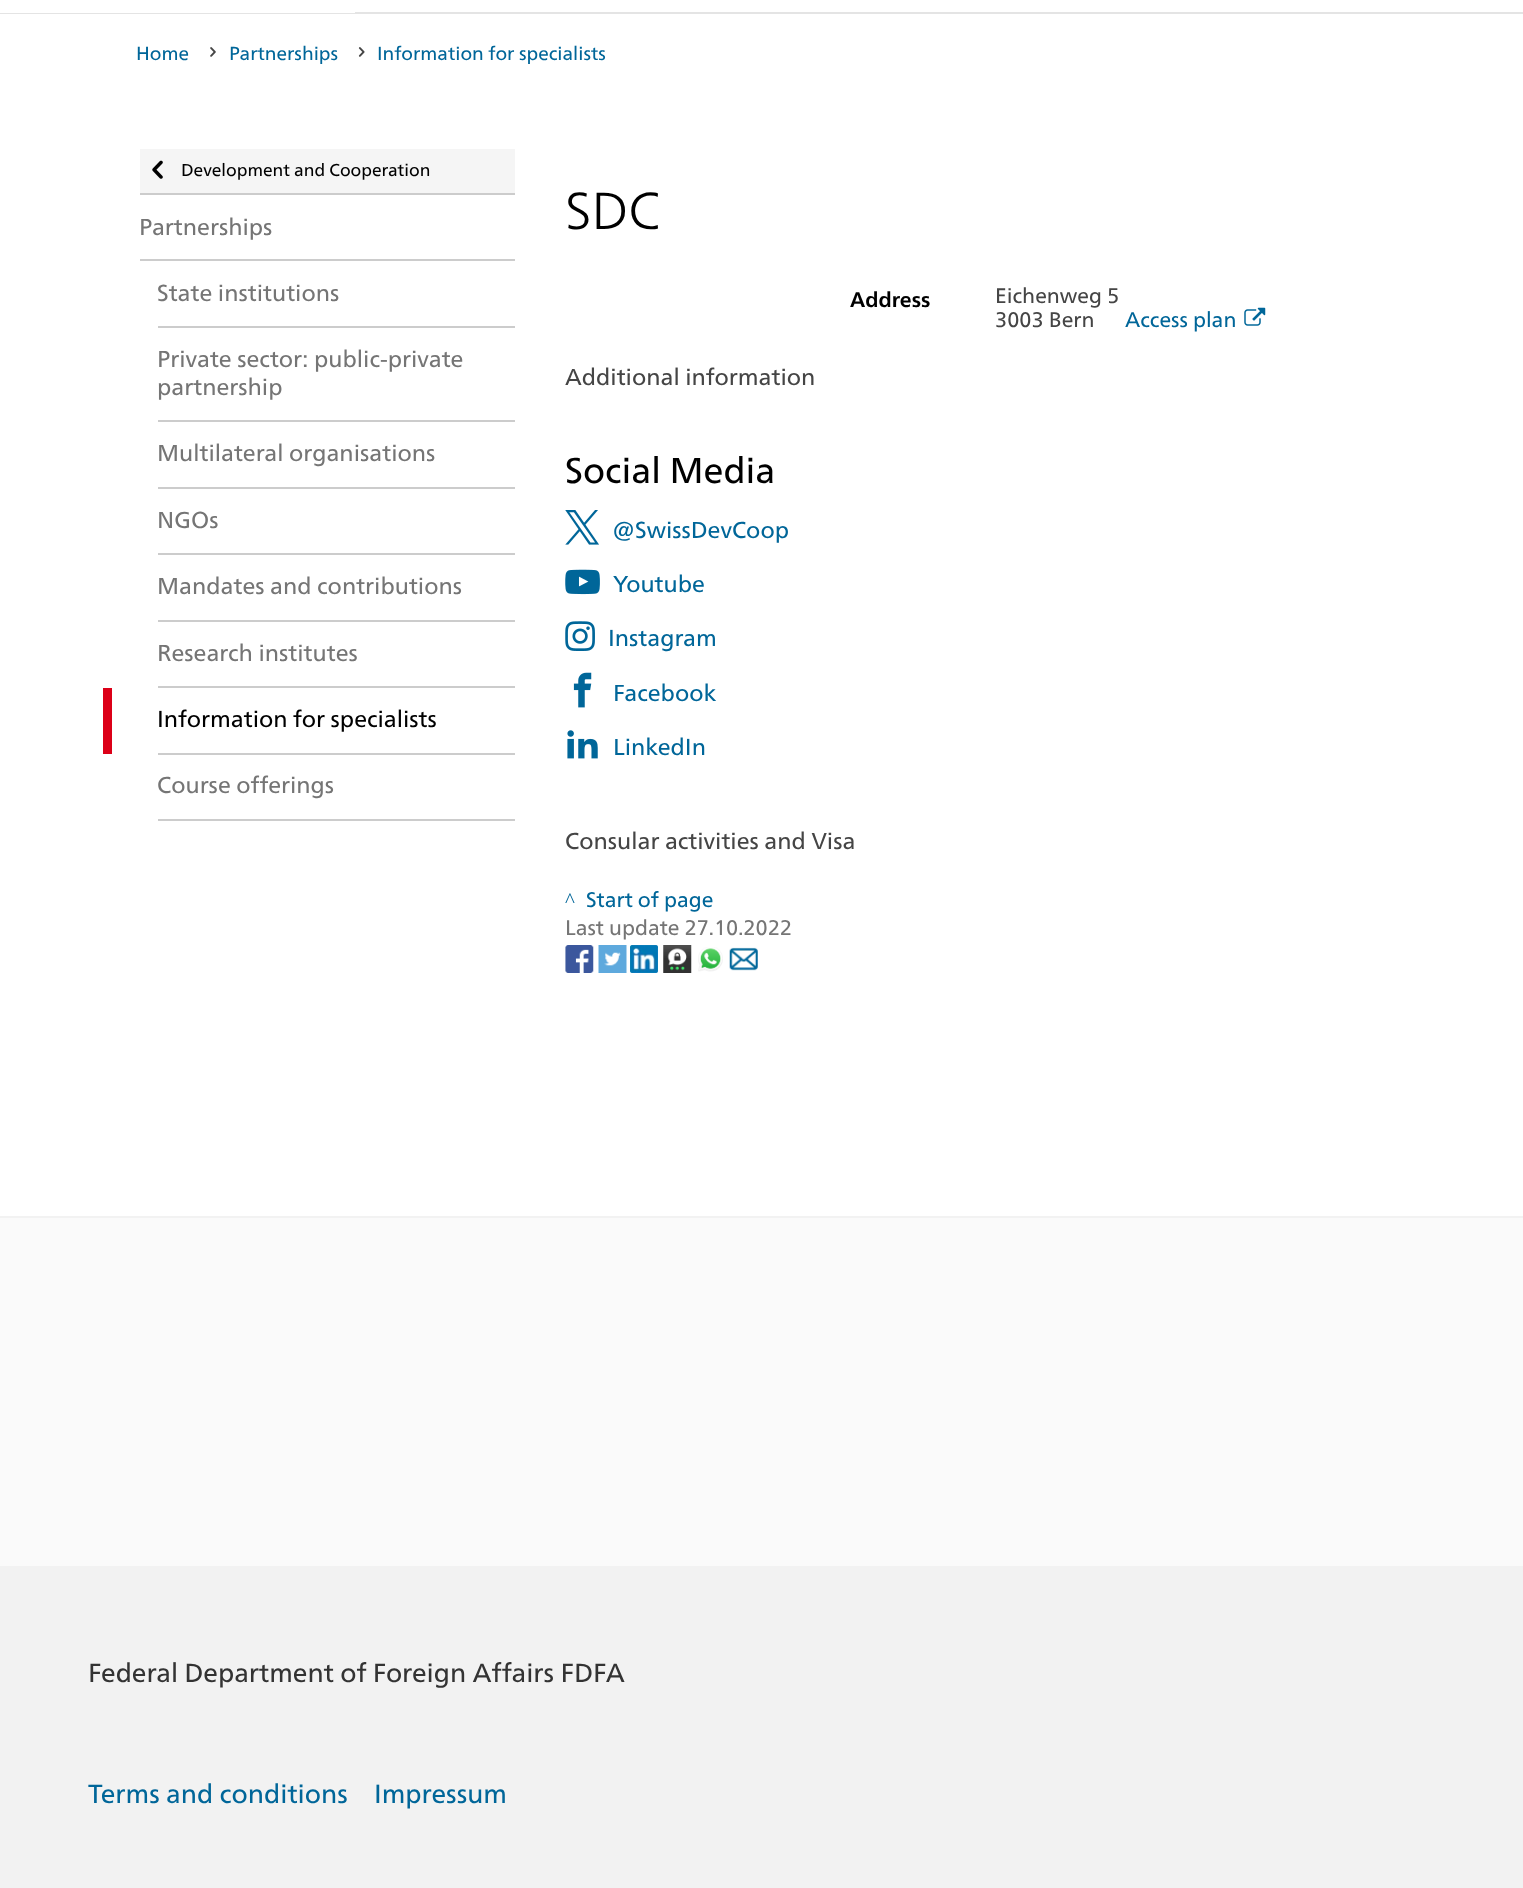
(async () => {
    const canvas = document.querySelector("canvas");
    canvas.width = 1523;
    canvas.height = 1888;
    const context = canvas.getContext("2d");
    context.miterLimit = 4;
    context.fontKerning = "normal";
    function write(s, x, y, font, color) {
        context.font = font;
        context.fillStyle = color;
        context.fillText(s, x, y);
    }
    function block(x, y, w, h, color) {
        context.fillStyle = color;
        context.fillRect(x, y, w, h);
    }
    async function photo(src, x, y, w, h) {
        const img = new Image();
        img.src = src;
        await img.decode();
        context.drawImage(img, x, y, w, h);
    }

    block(0, 0, 1523, 1888, "rgb(255, 255, 255)");
    block(0, 12, 1523, 2, "rgb(228, 228, 228)");
    block(0, 12, 355, 1, "rgb(255, 255, 255)");
    write("Home", 136, 60, "18.9px 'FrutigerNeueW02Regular'", "rgb(0, 102, 153)");
    await photo("media/1.png", 210, 47, 6, 10);
    write("Partnerships", 229, 60, "18.9px 'FrutigerNeueW02Regular'", "rgb(0, 102, 153)");
    await photo("media/2.png", 358, 47, 7, 10);
    write("Information for specialists", 377, 60, "18.9px 'FrutigerNeueW02Regular'", "rgb(0, 102, 153)");
    block(140, 149, 375, 44, "rgb(245, 245, 245)");
    block(140, 193, 375, 2, "rgb(204, 204, 204)");
    await photo("media/3.png", 152, 160, 11, 19);
    write("Development and Cooperation", 181, 176, "17.3px 'FrutigerNeueW02Regular'", "rgb(0, 0, 0)");
    block(140, 259, 375, 2, "rgb(204, 204, 204)");
    write("Partnerships", 139, 235, "23.1px 'FrutigerNeueW02Regular'", "rgb(117, 117, 117)");
    block(158, 326, 357, 2, "rgb(204, 204, 204)");
    write("State institutions", 157, 301, "23.1px 'FrutigerNeueW02Regular'", "rgb(117, 117, 117)");
    block(158, 420, 357, 2, "rgb(204, 204, 204)");
    write("Private sector: public-private", 157, 367, "23.1px 'FrutigerNeueW02Regular'", "rgb(117, 117, 117)");
    write("partnership", 157, 395, "23.1px 'FrutigerNeueW02Regular'", "rgb(117, 117, 117)");
    block(158, 487, 357, 2, "rgb(204, 204, 204)");
    write("Multilateral organisations", 157, 461, "23.1px 'FrutigerNeueW02Regular'", "rgb(117, 117, 117)");
    block(158, 553, 357, 2, "rgb(204, 204, 204)");
    write("NGOs", 157, 528, "23.1px 'FrutigerNeueW02Regular'", "rgb(117, 117, 117)");
    block(158, 620, 357, 2, "rgb(204, 204, 204)");
    write("Mandates and contributions", 157, 594, "23.1px 'FrutigerNeueW02Regular'", "rgb(117, 117, 117)");
    block(158, 686, 357, 2, "rgb(204, 204, 204)");
    write("Research institutes", 157, 661, "23.1px 'FrutigerNeueW02Regular'", "rgb(117, 117, 117)");
    block(103, 688, 9, 66, "rgb(220, 0, 24)");
    block(158, 753, 357, 2, "rgb(204, 204, 204)");
    write("Information for specialists", 157, 727, "23.1px 'FrutigerNeueW02Regular'", "rgb(0, 0, 0)");
    block(158, 819, 357, 2, "rgb(204, 204, 204)");
    write("Course offerings", 157, 793, "23.1px 'FrutigerNeueW02Regular'", "rgb(117, 117, 117)");
    write("SDC", 565, 229, "300 52px 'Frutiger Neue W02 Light'", "rgb(0, 0, 0)");
    write("Address", 850, 307, "bold 21px 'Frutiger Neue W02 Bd'", "rgb(0, 0, 0)");
    write("Eichenweg 5", 995, 303, "21px 'FrutigerNeueW02Regular'", "rgb(69, 69, 69)");
    write("3003 Bern", 995, 327, "21px 'FrutigerNeueW02Regular'", "rgb(69, 69, 69)");
    write("Access plan", 1125, 327, "21px 'FrutigerNeueW02Regular'", "rgb(0, 102, 153)");
    await photo("media/4.png", 1244, 307, 22, 19);
    write("Additional information", 565, 385, "23.1px 'FrutigerNeueW02Regular'", "rgb(69, 69, 69)");
    write("Social Media", 565, 483, "35.75px 'FrutigerNeueW02Regular'", "rgb(0, 0, 0)");
    await photo("media/5.png", 565, 510, 34, 35);
    write("@SwissDevCoop", 612, 538, "23.1px 'FrutigerNeueW02Regular'", "rgb(0, 102, 153)");
    await photo("media/6.png", 565, 569, 35, 26);
    write("Youtube", 613, 592, "23.1px 'FrutigerNeueW02Regular'", "rgb(0, 102, 153)");
    await photo("media/7.png", 565, 621, 30, 30);
    write("Instagram", 608, 646, "23.1px 'FrutigerNeueW02Regular'", "rgb(0, 102, 153)");
    await photo("media/8.png", 573, 672, 19, 36);
    write("Facebook", 613, 701, "23.1px 'FrutigerNeueW02Regular'", "rgb(0, 102, 153)");
    await photo("media/9.png", 567, 730, 31, 29);
    write("LinkedIn", 613, 755, "23.1px 'FrutigerNeueW02Regular'", "rgb(0, 102, 153)");
    write("Consular activities and Visa", 565, 849, "23.1px 'FrutigerNeueW02Regular'", "rgb(69, 69, 69)");
    write("^", 565, 907, "21px Liberation Serif", "rgb(0, 102, 153)");
    write("Start of page", 586, 907, "21px 'FrutigerNeueW02Regular'", "rgb(0, 102, 153)");
    write("Last update 27.10.2022", 565, 935, "21px 'FrutigerNeueW02Regular'", "rgb(117, 117, 117)");
    await photo("media/10.png", 565, 945, 29, 28);
    await photo("media/11.png", 598, 945, 29, 28);
    await photo("media/12.png", 630, 945, 28, 28);
    await photo("media/13.png", 663, 945, 29, 28);
    await photo("media/14.png", 698, 947, 25, 25);
    await photo("media/15.png", 729, 947, 29, 24);
    block(0, 1218, 1523, 348, "rgb(250, 250, 250)");
    block(0, 1216, 1523, 2, "rgb(242, 242, 242)");
    block(0, 1566, 1523, 322, "rgb(242, 242, 242)");
    write("Federal Department of Foreign Affairs FDFA", 88, 1682, "26.25px 'FrutigerNeueW02Regular'", "rgb(51, 51, 51)");
    write("Terms and conditions", 88, 1803, "26.25px 'FrutigerNeueW02Regular'", "rgb(0, 102, 153)");
    write("Impressum", 374, 1803, "26.25px 'FrutigerNeueW02Regular'", "rgb(0, 102, 153)");
})();
